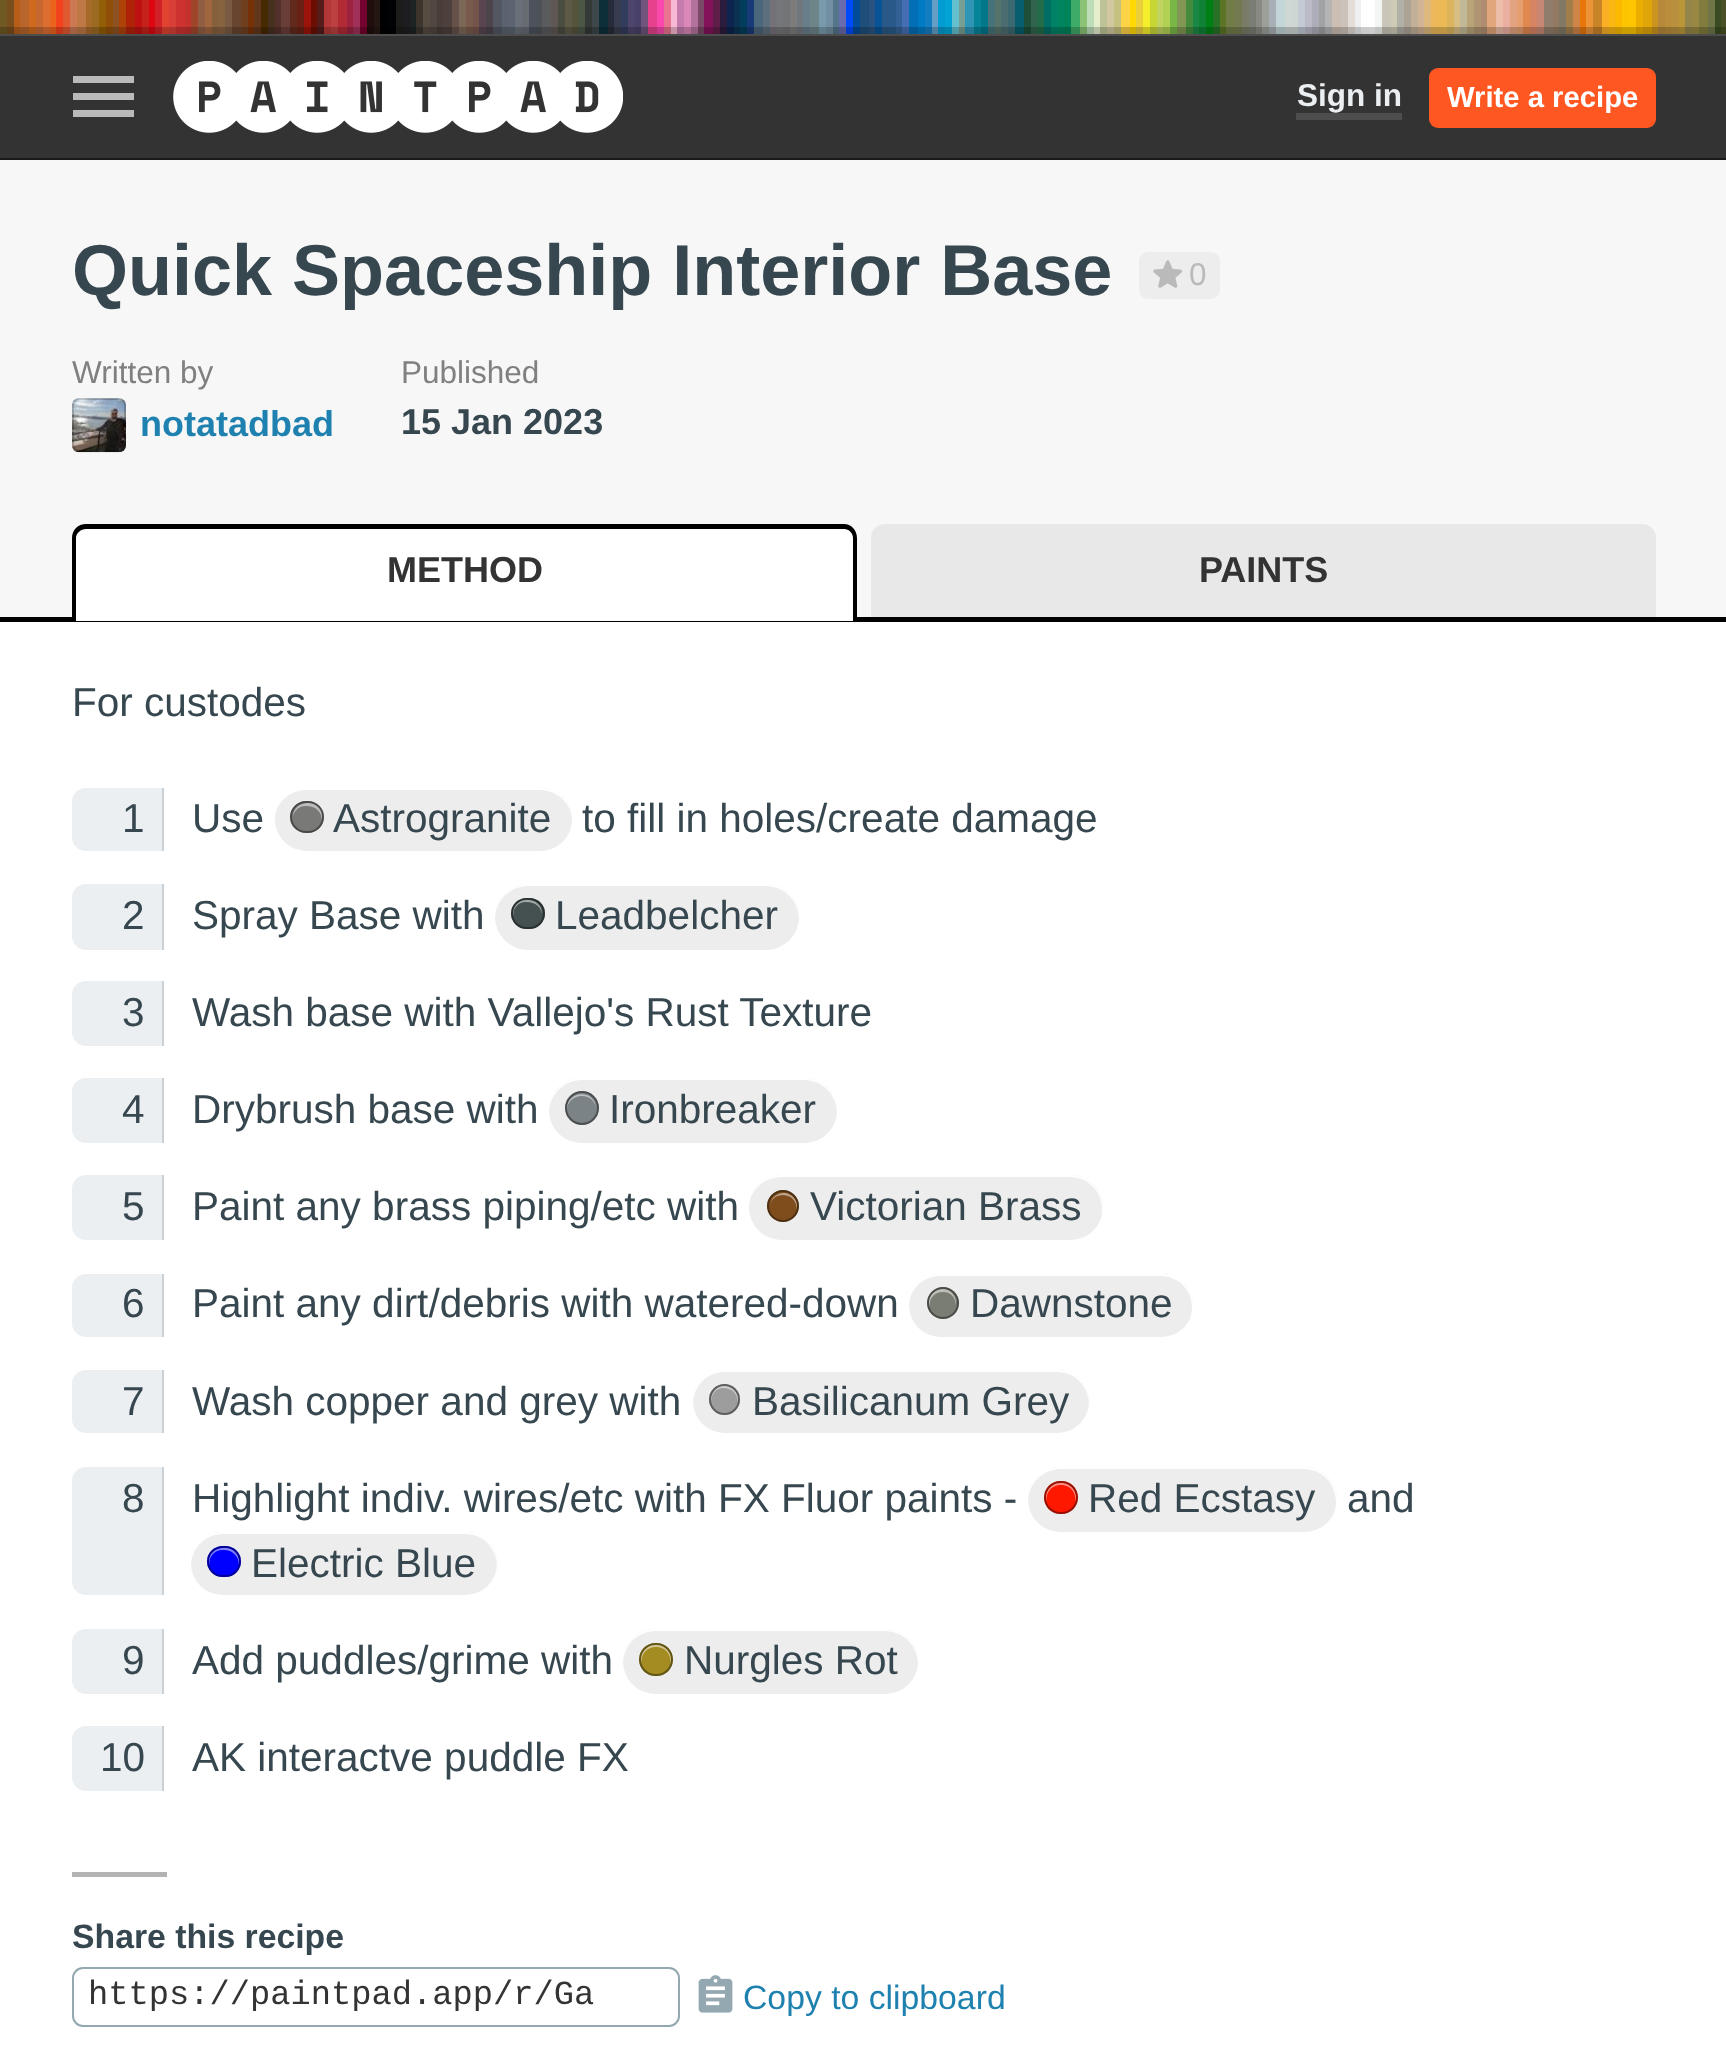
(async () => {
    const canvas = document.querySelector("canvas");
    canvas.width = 1726;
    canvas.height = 2058;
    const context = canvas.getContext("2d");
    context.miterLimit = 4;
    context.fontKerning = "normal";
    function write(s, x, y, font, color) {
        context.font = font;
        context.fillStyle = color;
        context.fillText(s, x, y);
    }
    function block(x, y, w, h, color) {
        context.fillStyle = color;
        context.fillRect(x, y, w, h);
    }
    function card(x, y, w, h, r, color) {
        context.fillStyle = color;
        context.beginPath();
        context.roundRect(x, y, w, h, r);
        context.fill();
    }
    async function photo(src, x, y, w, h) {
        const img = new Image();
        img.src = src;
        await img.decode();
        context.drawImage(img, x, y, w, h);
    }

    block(0, 0, 1726, 2058, "rgb(255, 255, 255)");
    await photo("media/1.png", 0, 0, 1726, 34);
    block(0, 27, 1726, 7, "rgba(0, 0, 0, 0.2)");
    block(0, 34, 1726, 2, "rgb(77, 77, 77)");
    block(0, 36, 1726, 122, "rgb(51, 51, 51)");
    block(0, 158, 1726, 2, "rgb(26, 26, 26)");
    context.fillStyle = "rgb(186, 186, 186)";
    context.beginPath();
    context.moveTo(73, 117);
    context.lineTo(134, 117);
    context.lineTo(134, 110);
    context.lineTo(73, 110);
    context.closePath();
    context.moveTo(73, 100);
    context.lineTo(134, 100);
    context.lineTo(134, 93);
    context.lineTo(73, 93);
    context.closePath();
    context.moveTo(73, 76);
    context.lineTo(73, 83);
    context.lineTo(134, 83);
    context.lineTo(134, 76);
    context.closePath();
    context.fill();
    await photo("media/2.png", 173, 61, 450, 72);
    write("Sign in", 1297, 106, "bold 31.5px Liberation Sans", "rgb(236, 239, 241)");
    block(1296, 113, 106, 7, "rgb(77, 77, 77)");
    card(1429, 68, 227, 60, 9, "rgb(255, 87, 34)");
    write("Write a recipe", 1447, 107, "bold 29.25px Liberation Sans", "rgb(255, 255, 255)");
    block(0, 160, 1726, 457, "rgb(247, 247, 247)");
    write("Quick Spaceship Interior Base", 72, 295, "bold 72px Liberation Sans", "rgb(55, 71, 79)");
    card(1139, 252, 81, 47, 9, "rgb(237, 237, 237)");
    await photo("media/3.png", 1153, 260, 30, 28);
    write("0", 1189, 285, "31.5px Liberation Sans", "rgb(186, 186, 186)");
    write("Written by", 72, 383, "31.5px Liberation Sans", "rgb(128, 128, 128)");
    card(72, 398, 54, 54, 7, "rgb(236, 239, 241)");
    await photo("media/4.png", 72, 398, 54, 55);
    context.beginPath();
    context.roundRect(73, 399, 52, 52, 6);
    context.strokeStyle = "rgba(0, 0, 0, 0.2)";
    context.lineWidth = 2;
    context.stroke();
    write("notatadbad", 140, 436, "bold 36px Liberation Sans", "rgb(30, 129, 175)");
    write("Published", 401, 383, "31.5px Liberation Sans", "rgb(128, 128, 128)");
    write("15 Jan 2023", 401, 434, "bold 36px Liberation Sans", "rgb(55, 71, 79)");
    block(0, 617, 1726, 5, "rgb(0, 0, 0)");
    context.fillStyle = "rgb(255, 255, 255)";
    context.beginPath();
    context.roundRect(72, 524, 785, 97, [14, 14, 0, 0]);
    context.fill();
    context.fillStyle = "rgb(0, 0, 0)";
    context.beginPath();
    context.moveTo(86, 524);
    context.lineTo(844, 524);
    context.bezierCurveTo(851, 524, 857, 530, 857, 538);
    context.lineTo(857, 621);
    context.lineTo(72, 621);
    context.lineTo(72, 538);
    context.bezierCurveTo(72, 530, 78, 524, 86, 524);
    context.closePath();
    context.moveTo(86, 529);
    context.lineTo(844, 529);
    context.bezierCurveTo(849, 529, 853, 533, 853, 538);
    context.lineTo(853, 621);
    context.lineTo(76, 621);
    context.lineTo(76, 538);
    context.bezierCurveTo(76, 533, 81, 529, 86, 529);
    context.closePath();
    context.fill("evenodd");
    write("METHOD", 387, 582, "bold 36px Liberation Sans", "rgb(51, 51, 51)");
    context.fillStyle = "rgb(232, 232, 232)";
    context.beginPath();
    context.roundRect(871, 524, 785, 97, [14, 14, 0, 0]);
    context.fill();
    block(871, 617, 785, 4, "rgb(0, 0, 0)");
    write("PAINTS", 1199, 582, "bold 36px Liberation Sans", "rgb(51, 51, 51)");
    write("For custodes", 72, 716, "40.5px Liberation Sans", "rgb(55, 71, 79)");
    context.fillStyle = "rgb(236, 239, 241)";
    context.beginPath();
    context.roundRect(72, 788, 92, 63, [14, 0, 0, 14]);
    context.fill();
    block(162, 788, 2, 63, "rgb(201, 209, 215)");
    write("1", 122, 832, "40.5px Liberation Sans", "rgb(55, 71, 79)");
    write("Use", 192, 832, "40.5px Liberation Sans", "rgb(55, 71, 79)");
    card(275, 788, 297, 63, 31.5, "rgb(237, 237, 237)");
    context.fillStyle = "rgb(255, 255, 255)";
    context.beginPath();
    context.moveTo(306, 790);
    context.lineTo(540, 790);
    context.bezierCurveTo(557, 790, 572, 804, 572, 820);
    context.bezierCurveTo(572, 802, 558, 788, 540, 788);
    context.lineTo(306, 788);
    context.bezierCurveTo(293, 788, 282, 796, 278, 807);
    context.bezierCurveTo(283, 797, 294, 790, 306, 790);
    context.closePath();
    context.fill();
    card(290, 801, 34, 32, 16, "rgb(121, 121, 120)");
    context.fillStyle = "rgb(188, 188, 188)";
    context.beginPath();
    context.moveTo(306, 806);
    context.bezierCurveTo(317, 806, 322, 813, 321.5, 820);
    context.bezierCurveTo(322.5, 817, 322, 814, 321, 811);
    context.bezierCurveTo(315.5, 798, 293, 801.5, 293, 816.5);
    context.bezierCurveTo(294, 811, 298.5, 806, 306, 806);
    context.closePath();
    context.fill();
    context.beginPath();
    context.roundRect(291, 802, 32, 30, 15);
    context.strokeStyle = "rgba(0, 0, 0, 0.4)";
    context.stroke();
    write("Astrogranite", 333, 832, "40.5px Liberation Sans", "rgb(55, 71, 79)");
    write("to fill in holes/create damage", 582, 832, "40.5px Liberation Sans", "rgb(55, 71, 79)");
    context.fillStyle = "rgb(236, 239, 241)";
    context.beginPath();
    context.roundRect(72, 884, 92, 66, [14, 0, 0, 14]);
    context.fill();
    block(162, 884, 2, 66, "rgb(201, 209, 215)");
    write("2", 122, 929, "40.5px Liberation Sans", "rgb(55, 71, 79)");
    write("Spray Base with", 192, 929, "40.5px Liberation Sans", "rgb(55, 71, 79)");
    card(495, 884, 304, 66, 33, "rgb(237, 237, 237)");
    context.fillStyle = "rgb(255, 255, 255)";
    context.beginPath();
    context.moveTo(528, 886);
    context.lineTo(766, 886);
    context.bezierCurveTo(784, 886, 798, 900, 799, 918);
    context.lineTo(799, 917);
    context.bezierCurveTo(799, 899, 784, 884, 766, 884);
    context.lineTo(528, 884);
    context.bezierCurveTo(510, 884, 495, 899, 495, 917);
    context.lineTo(495, 918);
    context.bezierCurveTo(496, 900, 510, 886, 528, 886);
    context.closePath();
    context.fill();
    card(511, 898, 34, 31, 15.5, "rgb(69, 80, 81)");
    context.fillStyle = "rgb(162, 168, 168)";
    context.beginPath();
    context.moveTo(526, 902);
    context.bezierCurveTo(536, 902, 541, 907.5, 542, 914);
    context.bezierCurveTo(542.5, 898.5, 520, 894.5, 514, 908);
    context.bezierCurveTo(513, 911, 512.5, 913.5, 513.5, 916.5);
    context.bezierCurveTo(512.5, 909.5, 517, 902, 526, 902);
    context.closePath();
    context.fill();
    context.beginPath();
    context.roundRect(512, 899, 32, 29, 14.5);
    context.stroke();
    write("Leadbelcher", 555, 929, "40.5px Liberation Sans", "rgb(55, 71, 79)");
    context.fillStyle = "rgb(236, 239, 241)";
    context.beginPath();
    context.roundRect(72, 981, 92, 65, [14, 0, 0, 14]);
    context.fill();
    block(162, 981, 2, 65, "rgb(201, 209, 215)");
    write("3", 122, 1026, "40.5px Liberation Sans", "rgb(55, 71, 79)");
    write("Wash base with Vallejo's Rust Texture", 192, 1026, "40.5px Liberation Sans", "rgb(55, 71, 79)");
    context.fillStyle = "rgb(236, 239, 241)";
    context.beginPath();
    context.roundRect(72, 1078, 92, 65, [14, 0, 0, 14]);
    context.fill();
    block(162, 1078, 2, 65, "rgb(201, 209, 215)");
    write("4", 122, 1123, "40.5px Liberation Sans", "rgb(55, 71, 79)");
    write("Drybrush base with", 192, 1123, "40.5px Liberation Sans", "rgb(55, 71, 79)");
    card(549, 1078, 288, 65, 32.5, "rgb(237, 237, 237)");
    context.fillStyle = "rgb(255, 255, 255)";
    context.beginPath();
    context.moveTo(582, 1080);
    context.lineTo(804, 1080);
    context.bezierCurveTo(822, 1080, 836, 1094, 837, 1112);
    context.lineTo(837, 1110);
    context.bezierCurveTo(837, 1093, 822, 1078, 804, 1078);
    context.lineTo(582, 1078);
    context.bezierCurveTo(564, 1078, 549, 1093, 549, 1110);
    context.lineTo(549, 1112);
    context.bezierCurveTo(550, 1094, 564, 1080, 582, 1080);
    context.closePath();
    context.fill();
    context.fillStyle = "rgb(124, 131, 134)";
    context.beginPath();
    context.arc(582, 1108, 17, 0, Math.PI * 2);
    context.fill();
    context.fillStyle = "rgb(190, 193, 195)";
    context.beginPath();
    context.moveTo(582, 1096);
    context.bezierCurveTo(590, 1096, 595, 1101.5, 596, 1107.5);
    context.bezierCurveTo(594.5, 1088.5, 566, 1090.5, 567, 1109.5);
    context.bezierCurveTo(567.5, 1102.5, 572.5, 1096, 582, 1096);
    context.closePath();
    context.fill();
    context.beginPath();
    context.arc(582, 1108, 16, 0, Math.PI * 2);
    context.stroke();
    write("Ironbreaker", 609, 1123, "40.5px Liberation Sans", "rgb(55, 71, 79)");
    context.fillStyle = "rgb(236, 239, 241)";
    context.beginPath();
    context.roundRect(72, 1175, 92, 65, [14, 0, 0, 14]);
    context.fill();
    block(162, 1175, 2, 65, "rgb(201, 209, 215)");
    write("5", 122, 1220, "40.5px Liberation Sans", "rgb(55, 71, 79)");
    write("Paint any brass piping/etc with", 192, 1220, "40.5px Liberation Sans", "rgb(55, 71, 79)");
    card(749, 1175, 354, 65, 32.5, "rgb(237, 237, 237)");
    context.fillStyle = "rgb(255, 255, 255)";
    context.beginPath();
    context.moveTo(782, 1177);
    context.lineTo(1070, 1177);
    context.bezierCurveTo(1088, 1177, 1102, 1191, 1102, 1209);
    context.bezierCurveTo(1102, 1214, 1101, 1219, 1099, 1224);
    context.bezierCurveTo(1101, 1219, 1103, 1213, 1103, 1208);
    context.bezierCurveTo(1103, 1190, 1088, 1175, 1070, 1175);
    context.lineTo(782, 1175);
    context.bezierCurveTo(764, 1175, 749, 1190, 749, 1208);
    context.bezierCurveTo(749, 1191, 764, 1177, 782, 1177);
    context.closePath();
    context.fill();
    context.fillStyle = "rgb(127, 77, 28)";
    context.beginPath();
    context.arc(783, 1206, 16, 0, Math.PI * 2);
    context.fill();
    context.fillStyle = "rgb(191, 166, 142)";
    context.beginPath();
    context.moveTo(783, 1195);
    context.bezierCurveTo(793, 1195, 797.5, 1203.5, 796.5, 1210.5);
    context.bezierCurveTo(800.5, 1198, 785.5, 1187.5, 775, 1196);
    context.bezierCurveTo(772.5, 1198, 771, 1200.5, 770.5, 1203.5);
    context.bezierCurveTo(772, 1199, 776, 1195, 783, 1195);
    context.closePath();
    context.fill();
    context.beginPath();
    context.arc(783, 1206, 15, 0, Math.PI * 2);
    context.stroke();
    write("Victorian Brass", 810, 1220, "40.5px Liberation Sans", "rgb(55, 71, 79)");
    context.fillStyle = "rgb(236, 239, 241)";
    context.beginPath();
    context.roundRect(72, 1274, 92, 63, [14, 0, 0, 14]);
    context.fill();
    block(162, 1274, 2, 63, "rgb(201, 209, 215)");
    write("6", 122, 1317, "40.5px Liberation Sans", "rgb(55, 71, 79)");
    write("Paint any dirt/debris with watered-down", 192, 1317, "40.5px Liberation Sans", "rgb(55, 71, 79)");
    card(909, 1274, 284, 63, 31.5, "rgb(237, 237, 237)");
    context.fillStyle = "rgb(255, 255, 255)";
    context.beginPath();
    context.moveTo(940, 1276);
    context.lineTo(1161, 1276);
    context.bezierCurveTo(1178, 1276, 1192, 1290, 1192, 1307);
    context.bezierCurveTo(1192, 1312, 1191, 1317, 1189, 1321);
    context.bezierCurveTo(1192, 1316, 1193, 1311, 1193, 1306);
    context.bezierCurveTo(1193, 1288, 1179, 1274, 1162, 1274);
    context.lineTo(940, 1274);
    context.bezierCurveTo(923, 1274, 909, 1288, 909, 1306);
    context.bezierCurveTo(909, 1290, 923, 1276, 940, 1276);
    context.closePath();
    context.fill();
    context.fillStyle = "rgb(122, 125, 116)";
    context.beginPath();
    context.arc(943, 1303, 16, 0, Math.PI * 2);
    context.fill();
    context.fillStyle = "rgb(189, 190, 186)";
    context.beginPath();
    context.moveTo(943, 1292);
    context.bezierCurveTo(951.5, 1292, 956, 1298.5, 955.5, 1305);
    context.bezierCurveTo(956.5, 1301.5, 955.5, 1298, 953.5, 1295);
    context.bezierCurveTo(945, 1282, 925.5, 1292, 929.5, 1306.5);
    context.bezierCurveTo(929, 1299.5, 933.5, 1292, 943, 1292);
    context.closePath();
    context.fill();
    context.beginPath();
    context.arc(943, 1303, 15, 0, Math.PI * 2);
    context.stroke();
    write("Dawnstone", 970, 1317, "40.5px Liberation Sans", "rgb(55, 71, 79)");
    context.fillStyle = "rgb(236, 239, 241)";
    context.beginPath();
    context.roundRect(72, 1370, 92, 63, [14, 0, 0, 14]);
    context.fill();
    block(162, 1370, 2, 63, "rgb(201, 209, 215)");
    write("7", 122, 1415, "40.5px Liberation Sans", "rgb(55, 71, 79)");
    write("Wash copper and grey with", 192, 1415, "40.5px Liberation Sans", "rgb(55, 71, 79)");
    card(693, 1370, 396, 63, 31.5, "rgb(237, 237, 237)");
    context.fillStyle = "rgb(255, 255, 255)";
    context.beginPath();
    context.moveTo(724, 1372);
    context.lineTo(1058, 1372);
    context.bezierCurveTo(1075, 1372, 1088, 1386, 1089, 1403);
    context.lineTo(1089, 1402);
    context.bezierCurveTo(1089, 1384, 1075, 1370, 1058, 1370);
    context.lineTo(724, 1370);
    context.bezierCurveTo(707, 1370, 693, 1384, 693, 1402);
    context.lineTo(693, 1403);
    context.bezierCurveTo(694, 1386, 707, 1372, 724, 1372);
    context.closePath();
    context.fill();
    context.fillStyle = "rgb(157, 157, 157)";
    context.beginPath();
    context.arc(724.5, 1399.5, 15.5, 0, Math.PI * 2);
    context.fill();
    context.fillStyle = "rgb(206, 206, 206)";
    context.beginPath();
    context.moveTo(724, 1388);
    context.bezierCurveTo(734, 1388, 738.5, 1396.5, 737.5, 1403.5);
    context.bezierCurveTo(742, 1389.5, 722, 1379, 713.5, 1392);
    context.bezierCurveTo(711.5, 1395, 710.5, 1398.5, 711.5, 1402);
    context.bezierCurveTo(711, 1395, 715, 1388, 724, 1388);
    context.closePath();
    context.fill();
    context.beginPath();
    context.arc(724.5, 1399.5, 14.5, 0, Math.PI * 2);
    context.stroke();
    write("Basilicanum Grey", 752, 1415, "40.5px Liberation Sans", "rgb(55, 71, 79)");
    context.fillStyle = "rgb(236, 239, 241)";
    context.beginPath();
    context.roundRect(72, 1467, 92, 128, [14, 0, 0, 14]);
    context.fill();
    block(162, 1467, 2, 128, "rgb(201, 209, 215)");
    write("8", 122, 1512, "40.5px Liberation Sans", "rgb(55, 71, 79)");
    write("Highlight indiv. wires/etc with FX Fluor paints -", 192, 1512, "40.5px Liberation Sans", "rgb(55, 71, 79)");
    card(1028, 1467, 309, 65, 32.5, "rgb(237, 237, 237)");
    context.fillStyle = "rgb(255, 255, 255)";
    context.beginPath();
    context.moveTo(1061, 1469);
    context.lineTo(1304, 1469);
    context.bezierCurveTo(1322, 1469, 1336, 1484, 1336, 1502);
    context.bezierCurveTo(1336, 1506, 1335, 1509, 1334, 1512);
    context.bezierCurveTo(1336, 1508, 1337, 1504, 1337, 1500);
    context.bezierCurveTo(1337, 1482, 1322, 1467, 1304, 1467);
    context.lineTo(1060, 1467);
    context.bezierCurveTo(1043, 1467, 1028, 1482, 1028, 1500);
    context.lineTo(1028, 1501);
    context.bezierCurveTo(1029, 1483, 1043, 1469, 1061, 1469);
    context.closePath();
    context.fill();
    card(1044, 1481, 34, 33, 16.5, "rgb(254, 24, 0)");
    context.fillStyle = "rgb(255, 140, 128)";
    context.beginPath();
    context.moveTo(1061, 1485);
    context.bezierCurveTo(1072, 1485, 1077, 1495, 1075, 1503);
    context.bezierCurveTo(1078, 1496, 1074.5, 1487, 1067, 1484);
    context.bezierCurveTo(1059.5, 1481, 1050.5, 1484, 1047, 1492);
    context.bezierCurveTo(1045.5, 1495.5, 1045.5, 1499.5, 1047, 1503);
    context.bezierCurveTo(1045, 1495, 1050, 1485, 1061, 1485);
    context.closePath();
    context.fill();
    context.beginPath();
    context.roundRect(1045, 1482, 32, 31, 15.5);
    context.stroke();
    write("Red Ecstasy", 1088, 1512, "40.5px Liberation Sans", "rgb(55, 71, 79)");
    write("and", 1347, 1512, "40.5px Liberation Sans", "rgb(55, 71, 79)");
    card(191, 1532, 306, 63, 31.5, "rgb(237, 237, 237)");
    context.fillStyle = "rgb(255, 255, 255)";
    context.beginPath();
    context.moveTo(223, 1534);
    context.lineTo(466, 1534);
    context.bezierCurveTo(483, 1534, 496, 1548, 497, 1565);
    context.lineTo(497, 1564);
    context.bezierCurveTo(497, 1546, 483, 1532, 466, 1532);
    context.lineTo(222, 1532);
    context.bezierCurveTo(205, 1532, 191, 1546, 191, 1564);
    context.lineTo(191, 1565);
    context.bezierCurveTo(192, 1548, 205, 1534, 223, 1534);
    context.closePath();
    context.fill();
    card(207, 1546, 34, 31, 15.5, "rgb(0, 0, 254)");
    context.fillStyle = "rgb(128, 128, 255)";
    context.beginPath();
    context.moveTo(223, 1550);
    context.bezierCurveTo(234.5, 1550, 239.5, 1558, 238.5, 1565);
    context.bezierCurveTo(240.5, 1558.5, 237, 1551.5, 231, 1549);
    context.bezierCurveTo(223.5, 1546, 213.5, 1548.5, 210, 1556);
    context.bezierCurveTo(209, 1559, 208.5, 1562, 209.5, 1565);
    context.bezierCurveTo(208.5, 1558, 213, 1550, 223, 1550);
    context.closePath();
    context.fill();
    context.beginPath();
    context.roundRect(208, 1547, 32, 29, 14.5);
    context.stroke();
    write("Electric Blue", 251, 1577, "40.5px Liberation Sans", "rgb(55, 71, 79)");
    context.fillStyle = "rgb(236, 239, 241)";
    context.beginPath();
    context.roundRect(72, 1629, 92, 65, [14, 0, 0, 14]);
    context.fill();
    block(162, 1629, 2, 65, "rgb(201, 209, 215)");
    write("9", 122, 1674, "40.5px Liberation Sans", "rgb(55, 71, 79)");
    write("Add puddles/grime with", 192, 1674, "40.5px Liberation Sans", "rgb(55, 71, 79)");
    card(623, 1629, 295, 65, 32.5, "rgb(237, 237, 237)");
    context.fillStyle = "rgb(255, 255, 255)";
    context.beginPath();
    context.moveTo(656, 1631);
    context.lineTo(885, 1631);
    context.bezierCurveTo(903, 1631, 917, 1645, 918, 1663);
    context.lineTo(918, 1662);
    context.bezierCurveTo(918, 1644, 903, 1629, 886, 1629);
    context.lineTo(656, 1629);
    context.bezierCurveTo(638, 1629, 623, 1644, 623, 1662);
    context.lineTo(623, 1663);
    context.bezierCurveTo(624, 1645, 638, 1631, 656, 1631);
    context.closePath();
    context.fill();
    card(639, 1643, 34, 33, 16.5, "rgb(164, 140, 34)");
    context.fillStyle = "rgb(210, 198, 145)";
    context.beginPath();
    context.moveTo(656, 1647);
    context.bezierCurveTo(667, 1647, 672, 1657, 670, 1665);
    context.bezierCurveTo(673, 1658, 669.5, 1649, 662, 1646);
    context.bezierCurveTo(654.5, 1643, 645.5, 1646, 642, 1654);
    context.bezierCurveTo(640.5, 1657.5, 640.5, 1661.5, 642, 1665);
    context.bezierCurveTo(640, 1657, 645, 1647, 656, 1647);
    context.closePath();
    context.fill();
    context.beginPath();
    context.roundRect(640, 1644, 32, 31, 15.5);
    context.stroke();
    write("Nurgles Rot", 684, 1674, "40.5px Liberation Sans", "rgb(55, 71, 79)");
    context.fillStyle = "rgb(236, 239, 241)";
    context.beginPath();
    context.roundRect(72, 1726, 92, 65, [14, 0, 0, 14]);
    context.fill();
    block(162, 1726, 2, 65, "rgb(201, 209, 215)");
    write("10", 100, 1771, "40.5px Liberation Sans", "rgb(55, 71, 79)");
    write("AK interactve puddle FX", 192, 1771, "40.5px Liberation Sans", "rgb(55, 71, 79)");
    block(72, 1872, 95, 5, "rgb(179, 179, 179)");
    write("Share this recipe", 72, 1948, "bold 33.75px Liberation Sans", "rgb(55, 71, 79)");
    context.beginPath();
    context.roundRect(73, 1968, 606, 58, 10);
    context.strokeStyle = "rgb(148, 168, 177)";
    context.stroke();
    write("https://paintpad.app/r/Ga", 88, 2004, "33.75px Liberation Mono", "rgb(51, 51, 51)");
    await photo("media/5.png", 698, 1975, 35, 38);
    write("Copy to clipboard", 743, 2009, "33.75px Liberation Sans", "rgb(30, 129, 175)");
})();
